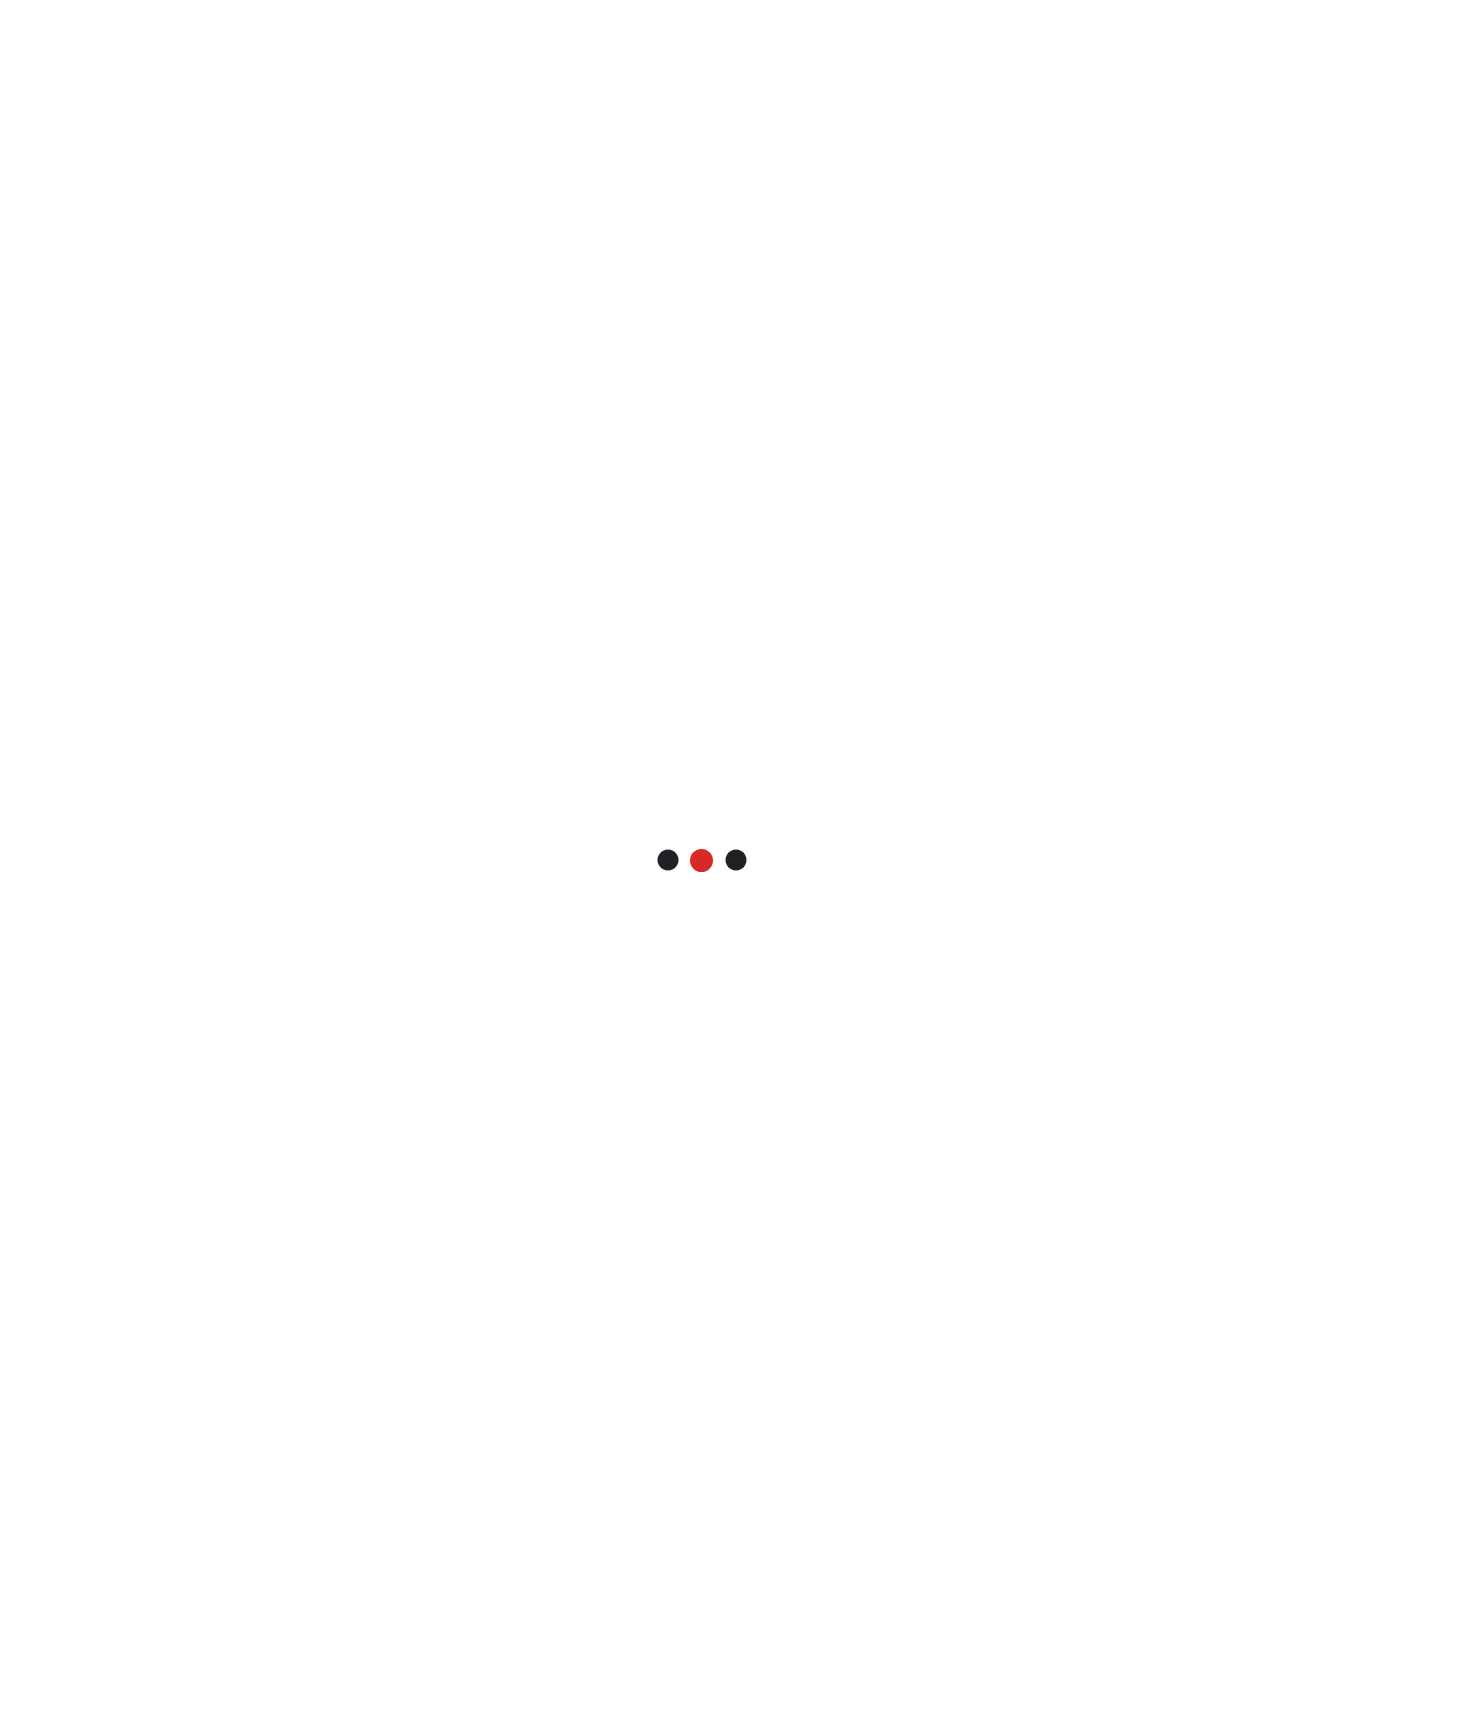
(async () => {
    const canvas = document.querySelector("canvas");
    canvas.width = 1462;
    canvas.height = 1720;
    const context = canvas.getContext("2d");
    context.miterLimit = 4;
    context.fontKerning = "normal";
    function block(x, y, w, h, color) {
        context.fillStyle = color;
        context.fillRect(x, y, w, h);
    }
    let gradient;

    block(0, 0, 1462, 1720, "rgb(255, 255, 255)");
    gradient = context.createRadialGradient(736, 860, 0, 736, 860, 11);
    gradient.addColorStop(0.9, "rgb(32, 33, 36)");
    gradient.addColorStop(1, "rgb(255, 255, 255)");
    context.fillStyle = gradient;
    context.fillRect(725, 849, 22, 22);
    gradient = context.createRadialGradient(668, 860, 0, 668, 860, 11);
    gradient.addColorStop(0.9, "rgb(32, 33, 36)");
    gradient.addColorStop(1, "rgb(255, 255, 255)");
    context.fillStyle = gradient;
    context.fillRect(657, 849, 22, 22);
    context.fillStyle = "rgb(216, 41, 38)";
    context.beginPath();
    context.arc(701.5, 860.5, 11.5, 0, Math.PI * 2);
    context.fill();
})();
